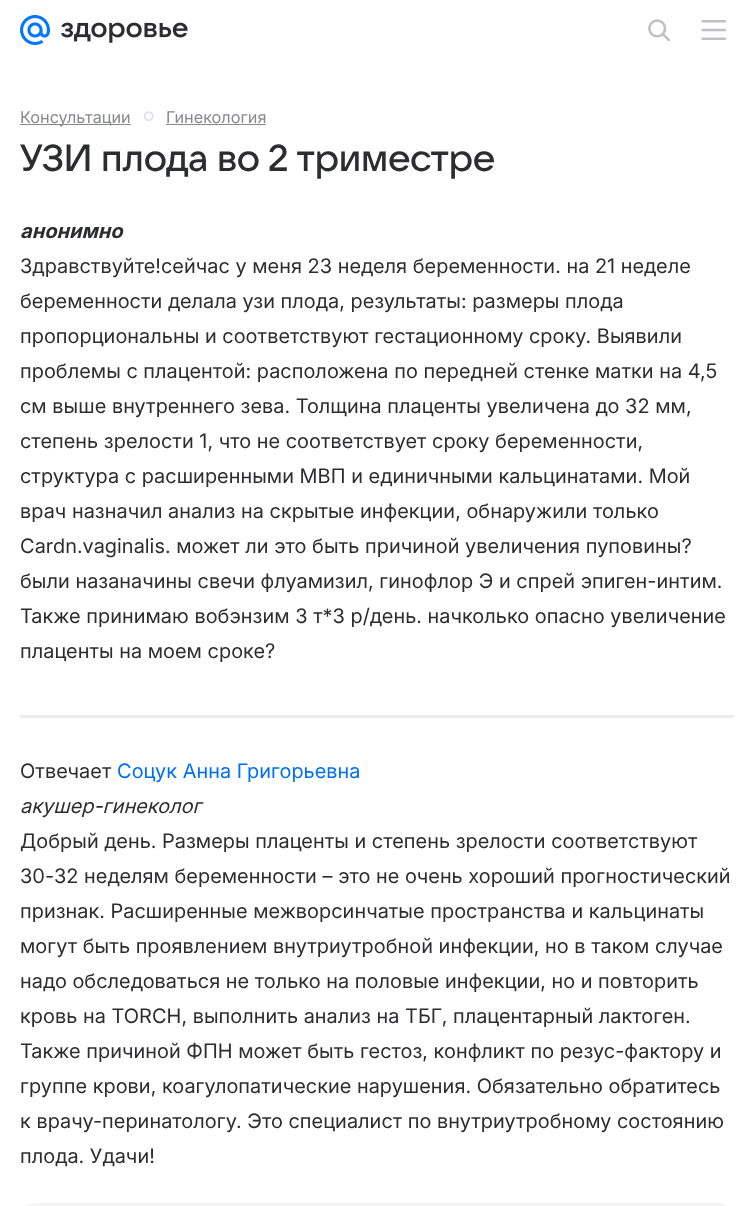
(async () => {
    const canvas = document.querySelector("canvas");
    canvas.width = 753;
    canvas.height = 1206;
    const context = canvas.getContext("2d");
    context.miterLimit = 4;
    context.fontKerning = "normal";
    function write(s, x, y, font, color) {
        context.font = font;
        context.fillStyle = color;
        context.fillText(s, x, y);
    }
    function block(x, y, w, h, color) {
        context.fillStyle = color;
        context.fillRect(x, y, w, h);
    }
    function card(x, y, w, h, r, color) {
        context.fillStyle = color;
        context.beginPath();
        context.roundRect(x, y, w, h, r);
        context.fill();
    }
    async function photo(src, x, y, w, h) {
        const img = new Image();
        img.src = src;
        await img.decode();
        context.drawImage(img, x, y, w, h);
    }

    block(0, 0, 753, 1206, "rgb(255, 255, 255)");
    await photo("media/1.png", 20, 15, 30, 30);
    await photo("media/2.png", 61, 22, 127, 21);
    await photo("media/3.png", 648, 19, 22, 23);
    await photo("media/4.png", 701, 20, 26, 20);
    block(20, 124, 111, 1, "rgb(135, 137, 143)");
    write("Консультации", 20, 123, "16.25px 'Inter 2'", "rgb(135, 137, 143)");
    await photo("media/5.png", 143, 111, 11, 11);
    write("Гинекология", 166, 123, "16.25px 'Inter 2'", "rgb(135, 137, 143)");
    block(166, 124, 100, 1, "rgb(135, 137, 143)");
    context.letterSpacing = "-0.2px";
    write("УЗИ плода во 2 триместре", 20, 171, "500 37.5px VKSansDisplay", "rgb(44, 45, 46)");
    context.letterSpacing = "0.05px";
    write("анонимно", 20, 238, "italic bold 20px Inter", "rgb(44, 45, 46)");
    write("Здравствуйте!сейчас у меня 23 неделя беременности. на 21 неделе", 20, 273, "20px Inter", "rgb(44, 45, 46)");
    write("беременности делала узи плода, результаты: размеры плода", 20, 308, "20px Inter", "rgb(44, 45, 46)");
    write("пропорциональны и соответствуют гестационному сроку. Выявили", 20, 343, "20px Inter", "rgb(44, 45, 46)");
    write("проблемы с плацентой: расположена по передней стенке матки на 4,5", 20, 378, "20px Inter", "rgb(44, 45, 46)");
    write("см выше внутреннего зева. Толщина плаценты увеличена до 32 мм,", 20, 413, "20px Inter", "rgb(44, 45, 46)");
    write("степень зрелости 1, что не соответствует сроку беременности,", 20, 448, "20px Inter", "rgb(44, 45, 46)");
    write("структура с расширенными МВП и единичными кальцинатами. Мой", 20, 483, "20px Inter", "rgb(44, 45, 46)");
    write("врач назначил анализ на скрытые инфекции, обнаружили только", 20, 518, "20px Inter", "rgb(44, 45, 46)");
    write("Cardn.vaginalis. может ли это быть причиной увеличения пуповины?", 20, 553, "20px Inter", "rgb(44, 45, 46)");
    write("были назаначины свечи флуамизил, гинофлор Э и спрей эпиген-интим.", 20, 588, "20px Inter", "rgb(44, 45, 46)");
    write("Также принимаю вобэнзим 3 т*3 р/день. начколько опасно увеличение", 20, 623, "20px Inter", "rgb(44, 45, 46)");
    write("плаценты на моем сроке?", 20, 658, "20px Inter", "rgb(44, 45, 46)");
    block(20, 715, 714, 3, "rgb(235, 236, 239)");
    write("Отвечает", 20, 778, "20px Inter", "rgb(44, 45, 46)");
    write("Соцук Анна Григорьевна", 117, 778, "20px Inter", "rgb(0, 112, 240)");
    write("акушер-гинеколог", 20, 813, "italic 20px Inter", "rgb(44, 45, 46)");
    write("Добрый день. Размеры плаценты и степень зрелости соответствуют", 20, 848, "20px Inter", "rgb(44, 45, 46)");
    write("30-32 неделям беременности – это не очень хороший прогностический", 20, 883, "20px Inter", "rgb(44, 45, 46)");
    write("признак. Расширенные межворсинчатые пространства и кальцинаты", 20, 918, "20px Inter", "rgb(44, 45, 46)");
    write("могут быть проявлением внутриутробной инфекции, но в таком случае", 20, 953, "20px Inter", "rgb(44, 45, 46)");
    write("надо обследоваться не только на половые инфекции, но и повторить", 20, 988, "20px Inter", "rgb(44, 45, 46)");
    write("кровь на TORCH, выполнить анализ на ТБГ, плацентарный лактоген.", 20, 1023, "20px Inter", "rgb(44, 45, 46)");
    write("Также причиной ФПН может быть гестоз, конфликт по резус-фактору и", 20, 1058, "20px Inter", "rgb(44, 45, 46)");
    write("группе крови, коагулопатические нарушения. Обязательно обратитесь", 20, 1093, "20px Inter", "rgb(44, 45, 46)");
    write("к врачу-перинатологу. Это специалист по внутриутробному состоянию", 20, 1128, "20px Inter", "rgb(44, 45, 46)");
    write("плода. Удачи!", 20, 1163, "20px Inter", "rgb(44, 45, 46)");
    card(20, 1203, 714, 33, 30, "rgb(245, 245, 247)");
})();
